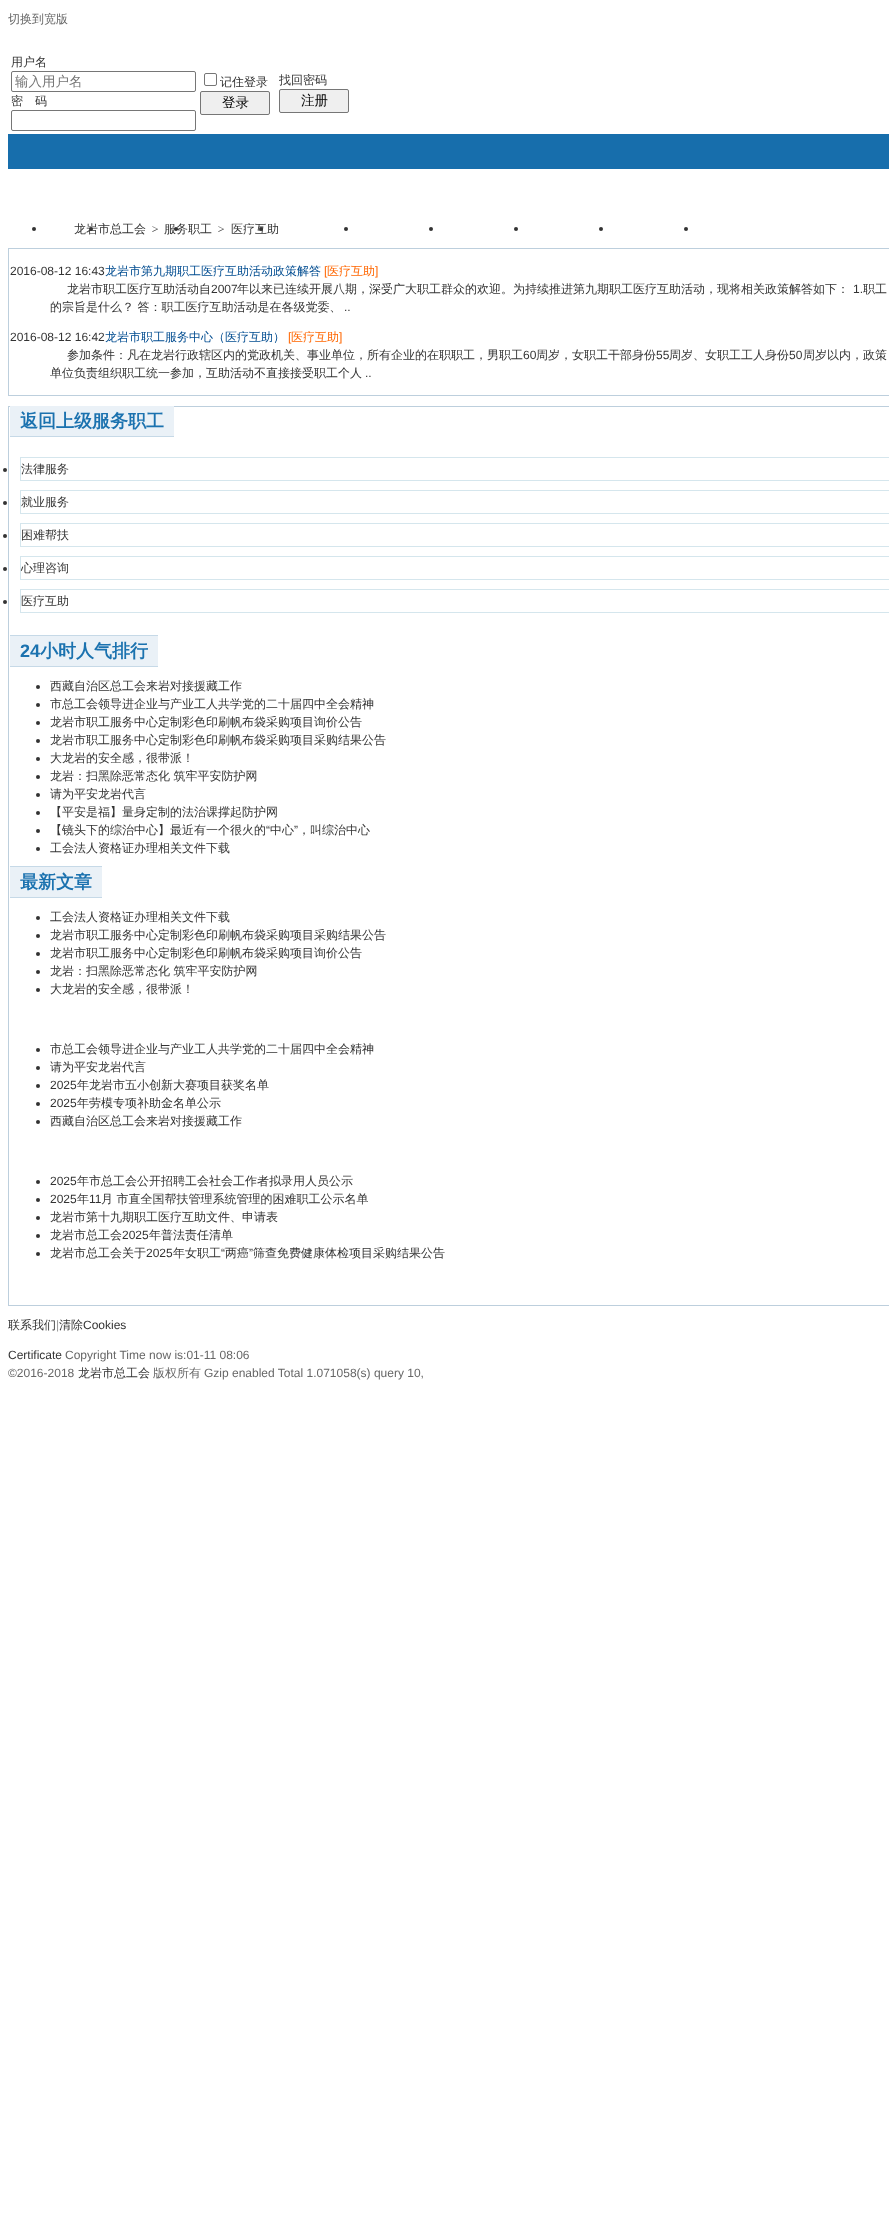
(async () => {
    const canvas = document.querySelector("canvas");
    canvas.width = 889;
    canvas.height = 2229;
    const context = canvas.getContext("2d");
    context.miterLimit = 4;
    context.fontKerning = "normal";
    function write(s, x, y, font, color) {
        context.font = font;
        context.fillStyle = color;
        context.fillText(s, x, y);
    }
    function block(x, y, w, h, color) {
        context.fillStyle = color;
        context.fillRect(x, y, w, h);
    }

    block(0, 0, 889, 2229, "rgb(255, 255, 255)");
    write("切换到宽版", 8, 23, "500 12px WenQuanYi Zen Hei", "rgb(102, 102, 102)");
    write("用户名", 11, 66, "500 12px WenQuanYi Zen Hei", "rgb(51, 51, 51)");
    context.beginPath();
    context.roundRect(11.5, 71.5, 184, 20, 1.5);
    context.strokeStyle = "rgb(118, 118, 118)";
    context.stroke();
    write("输入用户名", 15, 86, "500 13.5px WenQuanYi Zen Hei", "rgb(117, 117, 117)");
    write("密　码", 11, 105, "500 12px WenQuanYi Zen Hei", "rgb(51, 51, 51)");
    context.beginPath();
    context.roundRect(11.5, 110.5, 184, 20, 1.5);
    context.stroke();
    context.beginPath();
    context.roundRect(204.5, 73.5, 12, 12, 1.5);
    context.stroke();
    write("记住登录", 220, 86, "500 12px WenQuanYi Zen Hei", "rgb(51, 51, 51)");
    context.fillStyle = "rgb(239, 239, 239)";
    context.beginPath();
    context.roundRect(200.5, 91.5, 69, 23, 1.5);
    context.fill();
    context.stroke();
    write("登录", 222, 107, "500 13.5px WenQuanYi Zen Hei", "rgb(0, 0, 0)");
    write("找回密码", 279, 84, "500 12px WenQuanYi Zen Hei", "rgb(51, 51, 51)");
    context.fillStyle = "rgb(239, 239, 239)";
    context.beginPath();
    context.roundRect(279.5, 89.5, 69, 23, 1.5);
    context.fill();
    context.stroke();
    write("注册", 301, 105, "500 13.5px WenQuanYi Zen Hei", "rgb(0, 0, 0)");
    block(8, 134, 881, 35, "rgb(23, 110, 172)");
    context.fillStyle = "rgb(51, 51, 51)";
    context.beginPath();
    context.arc(34, 229, 2, 0, Math.PI * 2);
    context.fill();
    context.beginPath();
    context.arc(91, 229, 2, 0, Math.PI * 2);
    context.fill();
    context.beginPath();
    context.arc(176, 229, 2, 0, Math.PI * 2);
    context.fill();
    context.beginPath();
    context.arc(261, 229, 2, 0, Math.PI * 2);
    context.fill();
    context.beginPath();
    context.arc(346, 229, 2, 0, Math.PI * 2);
    context.fill();
    context.beginPath();
    context.arc(431, 229, 2, 0, Math.PI * 2);
    context.fill();
    context.beginPath();
    context.arc(516, 229, 2, 0, Math.PI * 2);
    context.fill();
    context.beginPath();
    context.arc(601, 229, 2, 0, Math.PI * 2);
    context.fill();
    context.beginPath();
    context.arc(686, 229, 2, 0, Math.PI * 2);
    context.fill();
    write("龙岩市总工会", 74, 233, "500 12px WenQuanYi Zen Hei", "rgb(51, 51, 51)");
    write(">", 151, 233, "italic 12px Liberation Serif", "rgb(51, 51, 51)");
    write("服务职工", 164, 233, "500 12px WenQuanYi Zen Hei", "rgb(51, 51, 51)");
    write(">", 217, 233, "italic 12px Liberation Serif", "rgb(51, 51, 51)");
    write("医疗互助", 231, 233, "500 12px WenQuanYi Zen Hei", "rgb(51, 51, 51)");
    context.strokeStyle = "rgb(189, 207, 221)";
    context.strokeRect(8.5, 248.5, 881, 147);
    write("2016-08-12 16:43", 10, 275, "12px Liberation Sans", "rgb(51, 51, 51)");
    write("龙岩市第九期职工医疗互助活动政策解答", 105, 275, "500 12px WenQuanYi Zen Hei", "rgb(1, 76, 144)");
    write("[", 324, 275, "12px Liberation Sans", "rgb(255, 102, 0)");
    write("医疗互助", 327, 275, "500 12px WenQuanYi Zen Hei", "rgb(255, 102, 0)");
    write("]", 375, 275, "12px Liberation Sans", "rgb(255, 102, 0)");
    write("龙岩市职工医疗互助活动自", 67, 293, "500 12px WenQuanYi Zen Hei", "rgb(51, 51, 51)");
    write("2007", 211, 293, "12px Liberation Sans", "rgb(51, 51, 51)");
    write("年以来已连续开展八期，深受广大职工群众的欢迎。为持续推进第九期职工医疗互助活动，现将相关政策解答如下：", 237, 293, "500 12px WenQuanYi Zen Hei", "rgb(51, 51, 51)");
    write("1.", 853, 293, "12px Liberation Sans", "rgb(51, 51, 51)");
    write("职工", 863, 293, "500 12px WenQuanYi Zen Hei", "rgb(51, 51, 51)");
    write("的宗旨是什么？ 答：职工医疗互助活动是在各级党委、", 50, 311, "500 12px WenQuanYi Zen Hei", "rgb(51, 51, 51)");
    write("..", 344, 311, "12px Liberation Sans", "rgb(51, 51, 51)");
    write("2016-08-12 16:42", 10, 341, "12px Liberation Sans", "rgb(51, 51, 51)");
    write("龙岩市职工服务中心（医疗互助）", 105, 341, "500 12px WenQuanYi Zen Hei", "rgb(1, 76, 144)");
    write("[", 288, 341, "12px Liberation Sans", "rgb(255, 102, 0)");
    write("医疗互助", 291, 341, "500 12px WenQuanYi Zen Hei", "rgb(255, 102, 0)");
    write("]", 339, 341, "12px Liberation Sans", "rgb(255, 102, 0)");
    write("参加条件：凡在龙岩行政辖区内的党政机关、事业单位，所有企业的在职职工，男职工", 67, 359, "500 12px WenQuanYi Zen Hei", "rgb(51, 51, 51)");
    write("60", 523, 359, "12px Liberation Sans", "rgb(51, 51, 51)");
    write("周岁，女职工干部身份", 536, 359, "500 12px WenQuanYi Zen Hei", "rgb(51, 51, 51)");
    write("55", 656, 359, "12px Liberation Sans", "rgb(51, 51, 51)");
    write("周岁、女职工工人身份", 669, 359, "500 12px WenQuanYi Zen Hei", "rgb(51, 51, 51)");
    write("50", 789, 359, "12px Liberation Sans", "rgb(51, 51, 51)");
    write("周岁以内，政策", 803, 359, "500 12px WenQuanYi Zen Hei", "rgb(51, 51, 51)");
    write("单位负责组织职工统一参加，互助活动不直接接受职工个人", 50, 377, "500 12px WenQuanYi Zen Hei", "rgb(51, 51, 51)");
    write("..", 365, 377, "12px Liberation Sans", "rgb(51, 51, 51)");
    context.strokeRect(8.5, 406.5, 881, 899);
    block(10, 406, 164, 30, "rgb(234, 241, 247)");
    write("返回上级服务职工", 20, 427, "bold 18px WenQuanYi Zen Hei", "rgb(27, 114, 175)");
    block(10, 436, 164, 1, "rgb(198, 217, 231)");
    context.fillStyle = "rgb(51, 51, 51)";
    context.beginPath();
    context.arc(5, 470, 2, 0, Math.PI * 2);
    context.fill();
    context.strokeStyle = "rgb(213, 230, 237)";
    context.strokeRect(20.5, 457.5, 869, 23);
    write("法律服务", 21, 473, "500 12px WenQuanYi Zen Hei", "rgb(51, 51, 51)");
    context.beginPath();
    context.arc(5, 503, 2, 0, Math.PI * 2);
    context.fill();
    context.strokeRect(20.5, 490.5, 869, 23);
    write("就业服务", 21, 506, "500 12px WenQuanYi Zen Hei", "rgb(51, 51, 51)");
    context.beginPath();
    context.arc(5, 536, 2, 0, Math.PI * 2);
    context.fill();
    context.strokeRect(20.5, 523.5, 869, 23);
    write("困难帮扶", 21, 539, "500 12px WenQuanYi Zen Hei", "rgb(51, 51, 51)");
    context.beginPath();
    context.arc(5, 569, 2, 0, Math.PI * 2);
    context.fill();
    context.strokeRect(20.5, 556.5, 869, 23);
    write("心理咨询", 21, 572, "500 12px WenQuanYi Zen Hei", "rgb(51, 51, 51)");
    context.beginPath();
    context.arc(5, 602, 2, 0, Math.PI * 2);
    context.fill();
    context.strokeRect(20.5, 589.5, 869, 23);
    write("医疗互助", 21, 605, "500 12px WenQuanYi Zen Hei", "rgb(51, 51, 51)");
    block(10, 636, 148, 30, "rgb(234, 241, 247)");
    write("24", 20, 657, "bold 18px Liberation Sans", "rgb(27, 114, 175)");
    block(10, 635, 148, 1, "rgb(198, 217, 231)");
    write("小时人气排行", 40, 657, "bold 18px WenQuanYi Zen Hei", "rgb(27, 114, 175)");
    block(10, 666, 148, 1, "rgb(198, 217, 231)");
    context.fillStyle = "rgb(51, 51, 51)";
    context.beginPath();
    context.arc(38, 687, 2, 0, Math.PI * 2);
    context.fill();
    write("西藏自治区总工会来岩对接援藏工作", 50, 690, "500 12px WenQuanYi Zen Hei", "rgb(51, 51, 51)");
    context.beginPath();
    context.arc(38, 705, 2, 0, Math.PI * 2);
    context.fill();
    write("市总工会领导进企业与产业工人共学党的二十届四中全会精神", 50, 708, "500 12px WenQuanYi Zen Hei", "rgb(51, 51, 51)");
    context.beginPath();
    context.arc(38, 723, 2, 0, Math.PI * 2);
    context.fill();
    write("龙岩市职工服务中心定制彩色印刷帆布袋采购项目询价公告", 50, 726, "500 12px WenQuanYi Zen Hei", "rgb(51, 51, 51)");
    context.beginPath();
    context.arc(38, 741, 2, 0, Math.PI * 2);
    context.fill();
    write("龙岩市职工服务中心定制彩色印刷帆布袋采购项目采购结果公告", 50, 744, "500 12px WenQuanYi Zen Hei", "rgb(51, 51, 51)");
    context.beginPath();
    context.arc(38, 759, 2, 0, Math.PI * 2);
    context.fill();
    write("大龙岩的安全感，很带派！", 50, 762, "500 12px WenQuanYi Zen Hei", "rgb(51, 51, 51)");
    context.beginPath();
    context.arc(38, 777, 2, 0, Math.PI * 2);
    context.fill();
    write("龙岩：扫黑除恶常态化 筑牢平安防护网", 50, 780, "500 12px WenQuanYi Zen Hei", "rgb(51, 51, 51)");
    context.beginPath();
    context.arc(38, 795, 2, 0, Math.PI * 2);
    context.fill();
    write("请为平安龙岩代言", 50, 798, "500 12px WenQuanYi Zen Hei", "rgb(51, 51, 51)");
    context.beginPath();
    context.arc(38, 813, 2, 0, Math.PI * 2);
    context.fill();
    write("【平安是福】量身定制的法治课撑起防护网", 50, 816, "500 12px WenQuanYi Zen Hei", "rgb(51, 51, 51)");
    write("【镜头下的综治中心】最近有一个很火的", 50, 834, "500 12px WenQuanYi Zen Hei", "rgb(51, 51, 51)");
    write("“", 266, 834, "12px Liberation Sans", "rgb(51, 51, 51)");
    write("中心", 270, 834, "500 12px WenQuanYi Zen Hei", "rgb(51, 51, 51)");
    write("”", 294, 834, "12px Liberation Sans", "rgb(51, 51, 51)");
    write("，叫综治中心", 298, 834, "500 12px WenQuanYi Zen Hei", "rgb(51, 51, 51)");
    context.beginPath();
    context.arc(38, 831, 2, 0, Math.PI * 2);
    context.fill();
    context.beginPath();
    context.arc(38, 849, 2, 0, Math.PI * 2);
    context.fill();
    write("工会法人资格证办理相关文件下载", 50, 852, "500 12px WenQuanYi Zen Hei", "rgb(51, 51, 51)");
    block(10, 867, 92, 30, "rgb(234, 241, 247)");
    write("最新文章", 20, 888, "bold 18px WenQuanYi Zen Hei", "rgb(27, 114, 175)");
    block(10, 866, 92, 1, "rgb(198, 217, 231)");
    block(10, 897, 92, 1, "rgb(198, 217, 231)");
    context.fillStyle = "rgb(51, 51, 51)";
    context.beginPath();
    context.arc(38, 918, 2, 0, Math.PI * 2);
    context.fill();
    write("工会法人资格证办理相关文件下载", 50, 921, "500 12px WenQuanYi Zen Hei", "rgb(51, 51, 51)");
    context.beginPath();
    context.arc(38, 936, 2, 0, Math.PI * 2);
    context.fill();
    write("龙岩市职工服务中心定制彩色印刷帆布袋采购项目采购结果公告", 50, 939, "500 12px WenQuanYi Zen Hei", "rgb(51, 51, 51)");
    context.beginPath();
    context.arc(38, 954, 2, 0, Math.PI * 2);
    context.fill();
    write("龙岩市职工服务中心定制彩色印刷帆布袋采购项目询价公告", 50, 957, "500 12px WenQuanYi Zen Hei", "rgb(51, 51, 51)");
    context.beginPath();
    context.arc(38, 972, 2, 0, Math.PI * 2);
    context.fill();
    write("龙岩：扫黑除恶常态化 筑牢平安防护网", 50, 975, "500 12px WenQuanYi Zen Hei", "rgb(51, 51, 51)");
    context.beginPath();
    context.arc(38, 990, 2, 0, Math.PI * 2);
    context.fill();
    write("大龙岩的安全感，很带派！", 50, 993, "500 12px WenQuanYi Zen Hei", "rgb(51, 51, 51)");
    context.beginPath();
    context.arc(38, 1050, 2, 0, Math.PI * 2);
    context.fill();
    write("市总工会领导进企业与产业工人共学党的二十届四中全会精神", 50, 1053, "500 12px WenQuanYi Zen Hei", "rgb(51, 51, 51)");
    context.beginPath();
    context.arc(38, 1068, 2, 0, Math.PI * 2);
    context.fill();
    write("请为平安龙岩代言", 50, 1071, "500 12px WenQuanYi Zen Hei", "rgb(51, 51, 51)");
    context.beginPath();
    context.arc(38, 1086, 2, 0, Math.PI * 2);
    context.fill();
    write("2025", 50, 1089, "12px Liberation Sans", "rgb(51, 51, 51)");
    write("年龙岩市五小创新大赛项目获奖名单", 77, 1089, "500 12px WenQuanYi Zen Hei", "rgb(51, 51, 51)");
    context.beginPath();
    context.arc(38, 1104, 2, 0, Math.PI * 2);
    context.fill();
    write("2025", 50, 1107, "12px Liberation Sans", "rgb(51, 51, 51)");
    write("年劳模专项补助金名单公示", 77, 1107, "500 12px WenQuanYi Zen Hei", "rgb(51, 51, 51)");
    context.beginPath();
    context.arc(38, 1122, 2, 0, Math.PI * 2);
    context.fill();
    write("西藏自治区总工会来岩对接援藏工作", 50, 1125, "500 12px WenQuanYi Zen Hei", "rgb(51, 51, 51)");
    context.beginPath();
    context.arc(38, 1182, 2, 0, Math.PI * 2);
    context.fill();
    write("2025", 50, 1185, "12px Liberation Sans", "rgb(51, 51, 51)");
    write("年市总工会公开招聘工会社会工作者拟录用人员公示", 77, 1185, "500 12px WenQuanYi Zen Hei", "rgb(51, 51, 51)");
    context.beginPath();
    context.arc(38, 1200, 2, 0, Math.PI * 2);
    context.fill();
    write("2025", 50, 1203, "12px Liberation Sans", "rgb(51, 51, 51)");
    write("年", 77, 1203, "500 12px WenQuanYi Zen Hei", "rgb(51, 51, 51)");
    write("11", 89, 1203, "12px Liberation Sans", "rgb(51, 51, 51)");
    write("月 市直全国帮扶管理系统管理的困难职工公示名单", 101, 1203, "500 12px WenQuanYi Zen Hei", "rgb(51, 51, 51)");
    context.beginPath();
    context.arc(38, 1218, 2, 0, Math.PI * 2);
    context.fill();
    write("龙岩市第十九期职工医疗互助文件、申请表", 50, 1221, "500 12px WenQuanYi Zen Hei", "rgb(51, 51, 51)");
    context.beginPath();
    context.arc(38, 1236, 2, 0, Math.PI * 2);
    context.fill();
    write("龙岩市总工会", 50, 1239, "500 12px WenQuanYi Zen Hei", "rgb(51, 51, 51)");
    write("2025", 122, 1239, "12px Liberation Sans", "rgb(51, 51, 51)");
    write("年普法责任清单", 149, 1239, "500 12px WenQuanYi Zen Hei", "rgb(51, 51, 51)");
    write("龙岩市总工会关于", 50, 1257, "500 12px WenQuanYi Zen Hei", "rgb(51, 51, 51)");
    write("2025", 146, 1257, "12px Liberation Sans", "rgb(51, 51, 51)");
    write("年女职工", 173, 1257, "500 12px WenQuanYi Zen Hei", "rgb(51, 51, 51)");
    write("“", 221, 1257, "12px Liberation Sans", "rgb(51, 51, 51)");
    write("两癌", 225, 1257, "500 12px WenQuanYi Zen Hei", "rgb(51, 51, 51)");
    write("”", 249, 1257, "12px Liberation Sans", "rgb(51, 51, 51)");
    write("筛查免费健康体检项目采购结果公告", 253, 1257, "500 12px WenQuanYi Zen Hei", "rgb(51, 51, 51)");
    context.beginPath();
    context.arc(38, 1254, 2, 0, Math.PI * 2);
    context.fill();
    write("联", 8, 1329, "12px Noto Sans", "rgb(51, 51, 51)");
    write("系我们", 20, 1329, "500 12px WenQuanYi Zen Hei", "rgb(51, 51, 51)");
    write("|", 56, 1329, "12px Liberation Sans", "rgb(153, 153, 153)");
    write("清除", 59, 1329, "500 12px WenQuanYi Zen Hei", "rgb(51, 51, 51)");
    write("Cookies", 83, 1329, "12px Liberation Sans", "rgb(51, 51, 51)");
    write("Certificate", 8, 1359, "12px Liberation Sans", "rgb(51, 51, 51)");
    write("Copyright Time now is:01-11 08:06", 65, 1359, "12px Liberation Sans", "rgb(102, 102, 102)");
    write("©2016-2018", 8, 1377, "12px Liberation Sans", "rgb(102, 102, 102)");
    write("龙岩市总工会", 78, 1377, "500 12px WenQuanYi Zen Hei", "rgb(51, 51, 51)");
    write("版权所有", 153, 1377, "500 12px WenQuanYi Zen Hei", "rgb(102, 102, 102)");
    write("Gzip enabled Total 1.071058(s) query 10,", 204, 1377, "12px Liberation Sans", "rgb(102, 102, 102)");
})();
